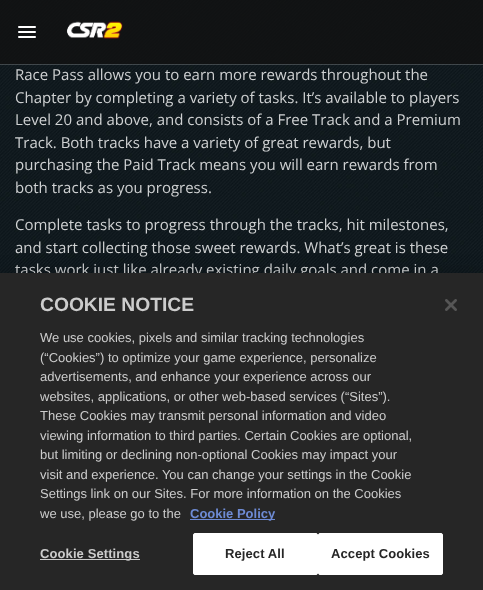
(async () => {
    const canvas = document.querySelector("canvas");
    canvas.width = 483;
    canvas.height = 590;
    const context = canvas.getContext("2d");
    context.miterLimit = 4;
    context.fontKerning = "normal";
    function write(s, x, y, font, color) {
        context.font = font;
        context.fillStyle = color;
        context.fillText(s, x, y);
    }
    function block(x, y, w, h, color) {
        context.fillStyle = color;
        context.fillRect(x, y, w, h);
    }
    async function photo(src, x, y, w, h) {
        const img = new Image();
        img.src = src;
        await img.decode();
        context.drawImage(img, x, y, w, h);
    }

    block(0, 0, 483, 590, "rgb(255, 255, 255)");
    await photo("media/3.png", 0, 0, 483, 273);
    block(0, 0, 483, 64, "rgba(17, 17, 17, 0.8)");
    context.strokeStyle = "rgba(255, 255, 255, 0.2)";
    context.strokeRect(-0.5, -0.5, 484, 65);
    await photo("media/1.png", 18, 26, 18, 12);
    await photo("media/2.png", 66, 21, 57, 18);
    write("Race Pass allows you to earn more rewards throughout the", 15, 80, "15px Open Sans", "rgb(207, 209, 210)");
    write("Chapter by completing a variety of tasks. It’s available to players", 15, 103, "15px Open Sans", "rgb(207, 209, 210)");
    write("Level 20 and above, and consists of a Free Track and a Premium", 15, 125, "15px Open Sans", "rgb(207, 209, 210)");
    write("Track. Both tracks have a variety of great rewards, but", 15, 148, "15px Open Sans", "rgb(207, 209, 210)");
    write("purchasing the Paid Track means you will earn rewards from", 15, 170, "15px Open Sans", "rgb(207, 209, 210)");
    write("both tracks as you progress.", 15, 193, "15px Open Sans", "rgb(207, 209, 210)");
    write("Complete tasks to progress through the tracks, hit milestones,", 15, 230, "15px Open Sans", "rgb(207, 209, 210)");
    write("and start collecting those sweet rewards. What’s great is these", 15, 253, "15px Open Sans", "rgb(207, 209, 210)");
    write("tasks work just like already existing daily goals and come in a", 15, 275, "15px Open Sans", "rgb(207, 209, 210)");
    context.fillStyle = "rgba(0, 0, 0, 0.2)";
    context.filter = "blur(9px)";
    context.beginPath();
    context.rect(0, 273, 483, 317);
    context.fill();
    context.filter = "none";
    block(0, 273, 483, 317, "rgb(38, 38, 38)");
    write("COOKIE NOTICE", 40, 311, "bold 19.25px Liberation Sans", "rgb(204, 204, 204)");
    write("We use cookies, pixels and similar tracking technologies", 40, 342, "13px Liberation Sans", "rgb(204, 204, 204)");
    write("(“Cookies”) to optimize your game experience, personalize", 40, 362, "13px Liberation Sans", "rgb(204, 204, 204)");
    write("advertisements, and enhance your experience across our", 40, 381, "13px Liberation Sans", "rgb(204, 204, 204)");
    write("websites, applications, or other web-based services (“Sites”).", 40, 401, "13px Liberation Sans", "rgb(204, 204, 204)");
    write("These Cookies may transmit personal information and video", 40, 420, "13px Liberation Sans", "rgb(204, 204, 204)");
    write("viewing information to third parties. Certain Cookies are optional,", 40, 440, "13px Liberation Sans", "rgb(204, 204, 204)");
    write("but limiting or declining non-optional Cookies may impact your", 40, 459, "13px Liberation Sans", "rgb(204, 204, 204)");
    write("visit and experience. You can change your settings in the Cookie", 40, 479, "13px Liberation Sans", "rgb(204, 204, 204)");
    write("Settings link on our Sites. For more information on the Cookies", 40, 498, "13px Liberation Sans", "rgb(204, 204, 204)");
    write("we use, please go to the", 40, 518, "13px Liberation Sans", "rgb(204, 204, 204)");
    block(190, 519, 85, 1, "rgb(110, 139, 212)");
    write("Cookie Policy", 190, 518, "bold 13px Liberation Sans", "rgb(110, 139, 212)");
    block(40, 559, 100, 1, "rgb(204, 204, 204)");
    context.letterSpacing = "0.1px";
    write("Cookie Settings", 40, 558, "bold 13px Liberation Sans", "rgb(204, 204, 204)");
    context.fillStyle = "rgb(255, 255, 255)";
    context.beginPath();
    context.roundRect(193.5, 533.5, 124, 41, 1.5);
    context.fill();
    context.strokeStyle = "rgb(255, 255, 255)";
    context.stroke();
    write("Reject All", 225, 558, "bold 13px Liberation Sans", "rgb(38, 38, 38)");
    context.fillStyle = "rgb(255, 255, 255)";
    context.beginPath();
    context.roundRect(318.5, 533.5, 124, 41, 1.5);
    context.fill();
    context.stroke();
    write("Accept Cookies", 331, 558, "bold 13px Liberation Sans", "rgb(38, 38, 38)");
    await photo("media/4.png", 445, 299, 12, 12);
})();
